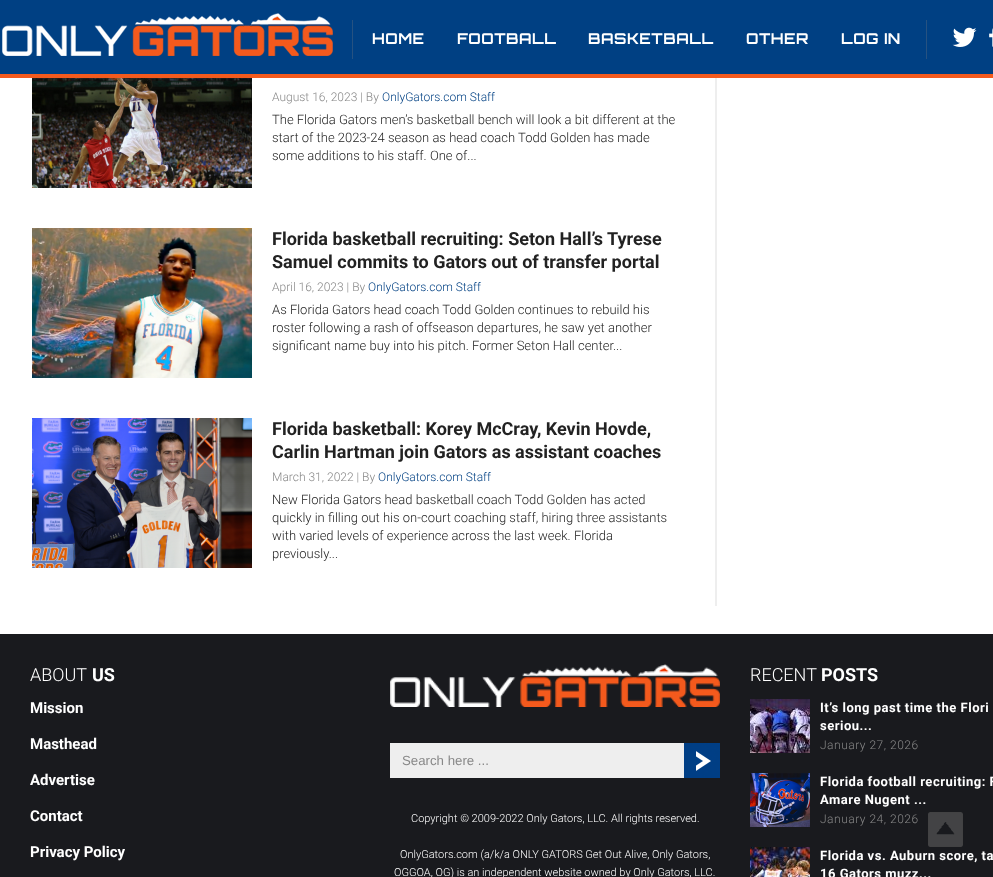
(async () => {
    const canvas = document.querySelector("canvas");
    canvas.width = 993;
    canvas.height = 877;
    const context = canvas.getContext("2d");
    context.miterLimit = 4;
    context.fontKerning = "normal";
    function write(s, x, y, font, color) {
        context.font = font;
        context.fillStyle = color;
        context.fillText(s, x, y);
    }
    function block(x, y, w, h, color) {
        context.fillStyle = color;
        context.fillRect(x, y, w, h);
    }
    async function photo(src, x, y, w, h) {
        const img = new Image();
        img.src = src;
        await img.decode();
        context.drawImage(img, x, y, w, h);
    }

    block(0, 0, 993, 877, "rgb(255, 255, 255)");
    block(0, 0, 993, 74, "rgb(0, 64, 131)");
    block(0, 74, 993, 4, "rgb(244, 90, 29)");
    await photo("media/1.png", 2, 13, 331, 43);
    block(926, 20, 1, 39, "rgb(38, 82, 129)");
    block(352, 20, 1, 39, "rgb(38, 82, 129)");
    context.letterSpacing = "0.5px";
    write("HOME", 372, 44, "bold 15px Orbitron", "rgb(255, 255, 255)");
    write("FOOTBALL", 457, 44, "bold 15px Orbitron", "rgb(255, 255, 255)");
    write("BASKETBALL", 588, 44, "bold 15px Orbitron", "rgb(255, 255, 255)");
    write("OTHER", 746, 44, "bold 15px Orbitron", "rgb(255, 255, 255)");
    write("LOG IN", 841, 44, "bold 15px Orbitron", "rgb(255, 255, 255)");
    await photo("media/2.png", 952, 27, 25, 20);
    await photo("media/3.png", 989, 28, 4, 19);
    block(715, 78, 2, 528, "rgb(238, 238, 238)");
    await photo("media/4.png", 32, 78, 220, 110);
    context.letterSpacing = "0px";
    write("August 16, 2023 | By", 272, 101, "300 12px Roboto", "rgb(136, 136, 136)");
    write("OnlyGators.com Staff", 382, 101, "300 12px Roboto", "rgb(0, 64, 131)");
    write("The Florida Gators men’s basketball bench will look a bit different at the", 272, 124, "300 13px Roboto", "rgb(34, 34, 34)");
    write("start of the 2023-24 season as head coach Todd Golden has made", 272, 142, "300 13px Roboto", "rgb(34, 34, 34)");
    write("some additions to his staff. One of...", 272, 160, "300 13px Roboto", "rgb(34, 34, 34)");
    await photo("media/5.png", 32, 228, 220, 150);
    write("Florida basketball recruiting: Seton Hall’s Tyrese", 272, 245, "bold 18px Roboto", "rgb(34, 34, 34)");
    write("Samuel commits to Gators out of transfer portal", 272, 268, "bold 18px Roboto", "rgb(34, 34, 34)");
    write("April 16, 2023 | By", 272, 291, "300 12px Roboto", "rgb(136, 136, 136)");
    write("OnlyGators.com Staff", 368, 291, "300 12px Roboto", "rgb(0, 64, 131)");
    write("As Florida Gators head coach Todd Golden continues to rebuild his", 272, 314, "300 13px Roboto", "rgb(34, 34, 34)");
    write("roster following a rash of offseason departures, he saw yet another", 272, 332, "300 13px Roboto", "rgb(34, 34, 34)");
    write("significant name buy into his pitch. Former Seton Hall center...", 272, 350, "300 13px Roboto", "rgb(34, 34, 34)");
    await photo("media/6.png", 32, 418, 220, 150);
    write("Florida basketball: Korey McCray, Kevin Hovde,", 272, 435, "bold 18px Roboto", "rgb(34, 34, 34)");
    write("Carlin Hartman join Gators as assistant coaches", 272, 458, "bold 18px Roboto", "rgb(34, 34, 34)");
    write("March 31, 2022 | By", 272, 481, "300 12px Roboto", "rgb(136, 136, 136)");
    write("OnlyGators.com Staff", 378, 481, "300 12px Roboto", "rgb(0, 64, 131)");
    write("New Florida Gators head basketball coach Todd Golden has acted", 272, 504, "300 13px Roboto", "rgb(34, 34, 34)");
    write("quickly in filling out his on-court coaching staff, hiring three assistants", 272, 522, "300 13px Roboto", "rgb(34, 34, 34)");
    write("with varied levels of experience across the last week. Florida", 272, 540, "300 13px Roboto", "rgb(34, 34, 34)");
    write("previously...", 272, 558, "300 13px Roboto", "rgb(34, 34, 34)");
    block(0, 634, 993, 243, "rgb(25, 26, 30)");
    write("ABOUT", 30, 681, "300 18px Roboto", "rgb(255, 255, 255)");
    write("US", 92, 681, "bold 18px Roboto", "rgb(255, 255, 255)");
    write("Mission", 30, 713, "bold 15px Roboto", "rgb(255, 255, 255)");
    write("Masthead", 30, 749, "bold 15px Roboto", "rgb(255, 255, 255)");
    write("Advertise", 30, 785, "bold 15px Roboto", "rgb(255, 255, 255)");
    write("Contact", 30, 821, "bold 15px Roboto", "rgb(255, 255, 255)");
    write("Privacy Policy", 30, 857, "bold 15px Roboto", "rgb(255, 255, 255)");
    await photo("media/7.png", 390, 664, 330, 43);
    block(390, 743, 294, 35, "rgb(238, 238, 238)");
    write("Search here ...", 402, 765, "13.25px Liberation Sans", "rgb(136, 136, 136)");
    await photo("media/8.png", 684, 743, 36, 35);
    write("Copyright © 2009-2022 Only Gators, LLC. All rights reserved.", 411, 822, "300 11px Roboto", "rgb(255, 255, 255)");
    write("OnlyGators.com (a/k/a ONLY GATORS Get Out Alive, Only Gators,", 400, 858, "300 11px Roboto", "rgb(255, 255, 255)");
    write("OGGOA, OG) is an independent website owned by Only Gators, LLC.", 394, 876, "300 11px Roboto", "rgb(255, 255, 255)");
    write("RECENT", 750, 681, "300 18px Roboto", "rgb(255, 255, 255)");
    write("POSTS", 821, 681, "bold 18px Roboto", "rgb(255, 255, 255)");
    await photo("media/9.png", 750, 699, 60, 54);
    context.letterSpacing = "0.5px";
    write("It’s long past time the Flori", 820, 712, "bold 13px Roboto", "rgb(255, 255, 255)");
    write("seriou...", 820, 730, "bold 13px Roboto", "rgb(255, 255, 255)");
    write("January 27, 2026", 820, 749, "300 12px Roboto", "rgb(136, 136, 136)");
    await photo("media/10.png", 750, 773, 60, 54);
    write("Florida football recruiting: F", 820, 786, "bold 13px Roboto", "rgb(255, 255, 255)");
    write("Amare Nugent ...", 820, 804, "bold 13px Roboto", "rgb(255, 255, 255)");
    write("January 24, 2026", 820, 823, "300 12px Roboto", "rgb(136, 136, 136)");
    await photo("media/11.png", 750, 847, 60, 30);
    write("Florida vs. Auburn score, ta", 820, 860, "bold 13px Roboto", "rgb(255, 255, 255)");
    write("16 Gators muzz...", 820, 878, "bold 13px Roboto", "rgb(255, 255, 255)");
    await photo("media/12.png", 928, 812, 35, 35);
})();
